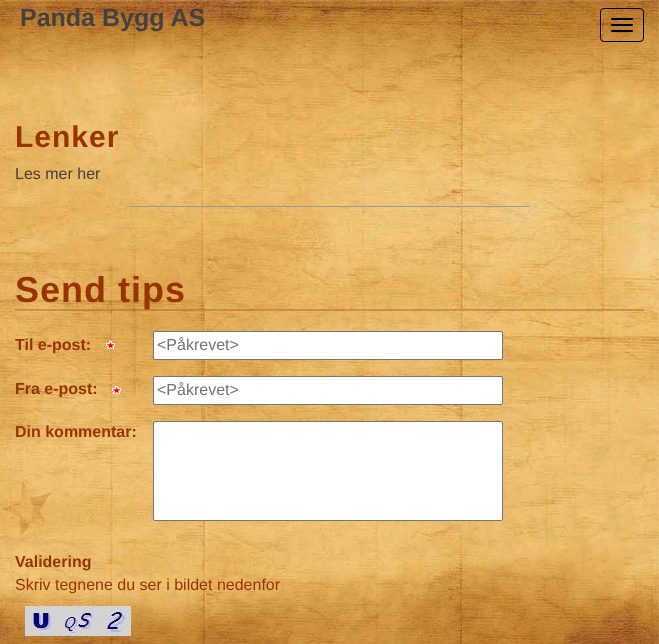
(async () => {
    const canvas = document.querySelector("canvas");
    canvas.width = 659;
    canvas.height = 644;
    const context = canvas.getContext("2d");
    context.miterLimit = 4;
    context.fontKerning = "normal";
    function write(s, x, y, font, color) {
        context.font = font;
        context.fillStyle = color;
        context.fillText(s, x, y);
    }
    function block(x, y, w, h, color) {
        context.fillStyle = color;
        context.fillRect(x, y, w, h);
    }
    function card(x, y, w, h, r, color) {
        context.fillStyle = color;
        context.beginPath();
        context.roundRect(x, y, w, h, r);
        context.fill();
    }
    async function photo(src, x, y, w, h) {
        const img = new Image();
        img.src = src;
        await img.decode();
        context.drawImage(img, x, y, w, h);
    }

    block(0, 0, 659, 644, "rgb(255, 255, 255)");
    await photo("media/1.png", 0, 0, 659, 644);
    context.fillStyle = "rgba(255, 255, 255, 0.15)";
    context.beginPath();
    context.moveTo(4, 1);
    context.lineTo(655, 1);
    context.bezierCurveTo(657, 1, 659, 3, 659, 5);
    context.bezierCurveTo(659, 2, 658, 0, 655, 0);
    context.lineTo(4, 0);
    context.lineTo(1, 1);
    context.lineTo(0, 2);
    context.lineTo(0, 5);
    context.bezierCurveTo(0, 3, 2, 1, 4, 1);
    context.closePath();
    context.fill();
    write("Panda Bygg AS", 20, 26, "bold 25px Liberation Sans", "rgb(66, 66, 66)");
    context.beginPath();
    context.roundRect(600.5, 8.5, 43, 33, 3.5);
    context.strokeStyle = "rgb(0, 0, 0)";
    context.stroke();
    card(611, 18, 22, 2, 1, "rgb(0, 0, 0)");
    card(611, 24, 22, 2, 1, "rgb(0, 0, 0)");
    card(611, 30, 22, 2, 1, "rgb(0, 0, 0)");
    context.letterSpacing = "1px";
    write("Lenker", 15, 147, "bold 30px Liberation Sans", "rgb(153, 51, 0)");
    context.letterSpacing = "0px";
    write("Les mer her", 15, 179, "16px Liberation Sans", "rgb(66, 66, 66)");
    block(130, 206, 400, 1, "rgb(153, 153, 153)");
    block(15, 309, 629, 2, "rgba(153, 51, 0, 0.3)");
    context.letterSpacing = "1px";
    write("Send tips", 15, 302, "bold 36px Liberation Sans", "rgb(153, 51, 0)");
    context.letterSpacing = "0px";
    write("Til e-post:", 15, 350, "bold 16px Liberation Sans", "rgb(153, 51, 0)");
    await photo("media/2.png", 106, 341, 9, 8);
    context.fillStyle = "rgb(255, 255, 255)";
    context.beginPath();
    context.roundRect(153.5, 331.5, 349, 28, 1.5);
    context.fill();
    context.strokeStyle = "rgb(118, 118, 118)";
    context.stroke();
    write("<Påkrevet>", 157, 350, "16px Liberation Sans", "rgb(117, 117, 117)");
    write("Fra e-post:", 15, 394, "bold 16px Liberation Sans", "rgb(153, 51, 0)");
    await photo("media/3.png", 112, 386, 9, 8);
    context.fillStyle = "rgb(255, 255, 255)";
    context.beginPath();
    context.roundRect(153.5, 376.5, 349, 28, 1.5);
    context.fill();
    context.stroke();
    write("<Påkrevet>", 157, 395, "16px Liberation Sans", "rgb(117, 117, 117)");
    write("Din kommentar:", 15, 437, "bold 16px Liberation Sans", "rgb(153, 51, 0)");
    context.fillStyle = "rgb(255, 255, 255)";
    context.beginPath();
    context.roundRect(153.5, 421.5, 349, 99, 1.5);
    context.fill();
    context.stroke();
    write("Validering", 15, 567, "bold 16px Liberation Sans", "rgb(153, 51, 0)");
    write("Skriv tegnene du ser i bildet nedenfor", 15, 590, "16px Liberation Sans", "rgb(153, 51, 0)");
    await photo("media/4.png", 25, 606, 106, 30);
})();
